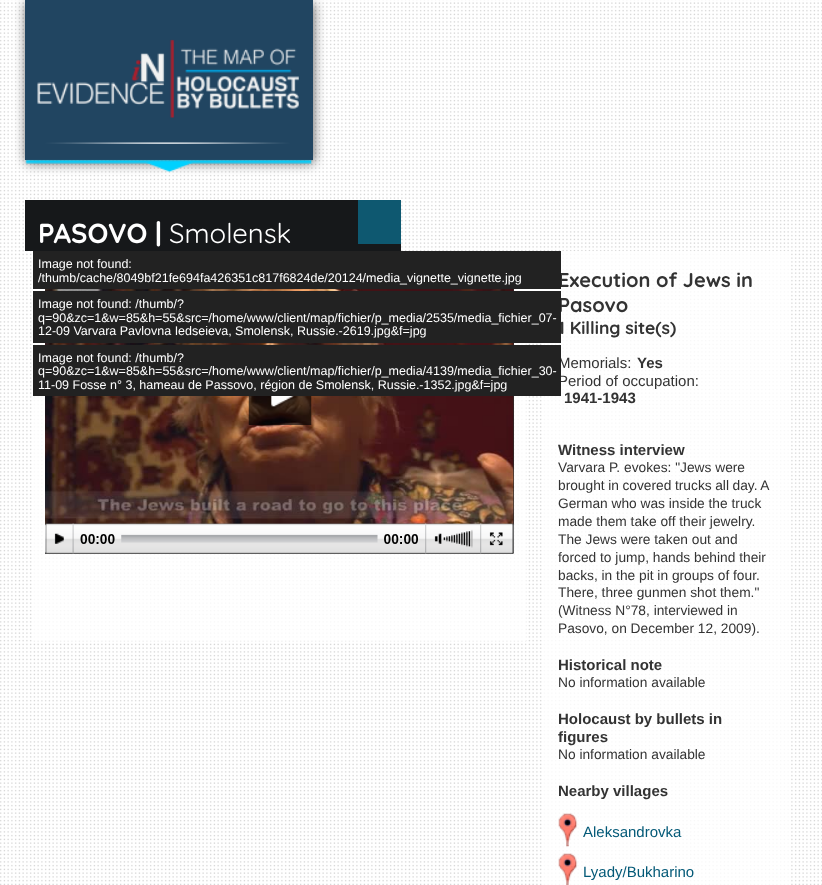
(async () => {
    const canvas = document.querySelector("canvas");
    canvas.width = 822;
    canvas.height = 885;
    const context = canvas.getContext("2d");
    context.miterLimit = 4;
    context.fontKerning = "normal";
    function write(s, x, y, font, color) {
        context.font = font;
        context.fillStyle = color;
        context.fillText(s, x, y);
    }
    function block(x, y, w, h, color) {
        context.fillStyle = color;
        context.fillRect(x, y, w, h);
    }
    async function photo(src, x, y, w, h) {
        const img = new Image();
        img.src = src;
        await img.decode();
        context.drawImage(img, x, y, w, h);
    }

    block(0, 0, 822, 885, "rgb(255, 255, 255)");
    await photo("media/3.png", 0, 0, 822, 885);
    context.fillStyle = "rgba(0, 0, 0, 0.6)";
    context.filter = "blur(6px)";
    context.beginPath();
    context.rect(26, 3, 288, 160);
    context.fill();
    context.filter = "none";
    block(25, 0, 288, 160, "rgb(33, 69, 97)");
    await photo("media/1.png", 37, 39, 262, 105);
    await photo("media/2.png", 25, 159, 287, 14);
    block(25, 200, 376, 51, "rgb(22, 24, 26)");
    write("PASOVO |", 38, 243, "bold 27.5px Quicksand", "rgb(255, 255, 255)");
    write("Smolensk", 169, 243, "27.5px Quicksand", "rgb(255, 255, 255)");
    block(358, 200, 43, 44, "rgb(14, 88, 112)");
    block(33, 291, 493, 350, "rgba(255, 255, 255, 0.8)");
    block(543, 251, 246, 634, "rgba(255, 255, 255, 0.8)");
    write("Execution of Jews in", 558, 287, "bold 20px Quicksand", "rgb(51, 51, 51)");
    block(33, 251, 528, 38, "rgb(34, 34, 34)");
    write("Image not found:", 38, 268, "12.5px Liberation Sans", "rgb(255, 255, 255)");
    write("/thumb/cache/8049bf21fe694fa426351c817f6824de/20124/media_vignette_vignette.jpg", 38, 282, "12.5px Liberation Sans", "rgb(255, 255, 255)");
    await photo("media/4.png", 45, 289, 469, 265);
    write("Pasovo", 558, 312, "bold 20px Quicksand", "rgb(51, 51, 51)");
    write("1 Killing site(s)", 558, 334, "bold 17.5px Quicksand", "rgb(51, 51, 51)");
    block(33, 291, 528, 52, "rgb(34, 34, 34)");
    write("Image not found: /thumb/?", 38, 308, "12.5px Liberation Sans", "rgb(255, 255, 255)");
    write("q=90&zc=1&w=85&h=55&src=/home/www/client/map/fichier/p_media/2535/media_fichier_07-", 38, 322, "12.5px Liberation Sans", "rgb(255, 255, 255)");
    write("12-09 Varvara Pavlovna Iedseieva, Smolensk, Russie.-2619.jpg&f=jpg", 38, 335, "12.5px Liberation Sans", "rgb(255, 255, 255)");
    write("Memorials:", 558, 368, "15px Liberation Sans", "rgb(51, 51, 51)");
    write("Period of occupation:", 558, 386, "15px Liberation Sans", "rgb(51, 51, 51)");
    block(33, 345, 528, 51, "rgb(34, 34, 34)");
    write("Image not found: /thumb/?", 38, 362, "12.5px Liberation Sans", "rgb(255, 255, 255)");
    write("q=90&zc=1&w=85&h=55&src=/home/www/client/map/fichier/p_media/4139/media_fichier_30-", 38, 375, "12.5px Liberation Sans", "rgb(255, 255, 255)");
    write("11-09 Fosse n° 3, hameau de Passovo, région de Smolensk, Russie.-1352.jpg&f=jpg", 38, 389, "12.5px Liberation Sans", "rgb(255, 255, 255)");
    write("Yes", 637, 368, "bold 15px Liberation Sans", "rgb(51, 51, 51)");
    write("1941-1943", 564, 403, "bold 15px Liberation Sans", "rgb(51, 51, 51)");
    write("Witness interview", 558, 455, "bold 15px Liberation Sans", "rgb(51, 51, 51)");
    write("Varvara P. evokes: \"Jews were", 558, 472, "13.75px Liberation Sans", "rgb(51, 51, 51)");
    context.wordSpacing = "-0.25px";
    write("brought in covered trucks all day. A", 558, 490, "13.75px Liberation Sans", "rgb(51, 51, 51)");
    context.wordSpacing = "0px";
    write("German who was inside the truck", 558, 508, "13.75px Liberation Sans", "rgb(51, 51, 51)");
    write("made them take off their jewelry.", 558, 526, "13.75px Liberation Sans", "rgb(51, 51, 51)");
    write("The Jews were taken out and", 558, 544, "13.75px Liberation Sans", "rgb(51, 51, 51)");
    write("forced to jump, hands behind their", 558, 562, "13.75px Liberation Sans", "rgb(51, 51, 51)");
    write("backs, in the pit in groups of four.", 558, 580, "13.75px Liberation Sans", "rgb(51, 51, 51)");
    write("There, three gunmen shot them.\"", 558, 597, "13.75px Liberation Sans", "rgb(51, 51, 51)");
    write("(Witness N°78, interviewed in", 558, 615, "13.75px Liberation Sans", "rgb(51, 51, 51)");
    write("Pasovo, on December 12, 2009).", 558, 633, "13.75px Liberation Sans", "rgb(51, 51, 51)");
    write("Historical note", 558, 670, "bold 15px Liberation Sans", "rgb(51, 51, 51)");
    write("No information available", 558, 687, "13.75px Liberation Sans", "rgb(51, 51, 51)");
    write("Holocaust by bullets in", 558, 724, "bold 15px Liberation Sans", "rgb(51, 51, 51)");
    write("figures", 558, 742, "bold 15px Liberation Sans", "rgb(51, 51, 51)");
    write("No information available", 558, 759, "13.75px Liberation Sans", "rgb(51, 51, 51)");
    write("Nearby villages", 558, 796, "bold 15px Liberation Sans", "rgb(51, 51, 51)");
    await photo("media/5.png", 558, 813, 20, 34);
    write("Aleksandrovka", 583, 837, "15px Liberation Sans", "rgb(3, 89, 119)");
    await photo("media/6.png", 558, 853, 20, 32);
    write("Lyady/Bukharino", 583, 877, "15px Liberation Sans", "rgb(3, 89, 119)");
})();
